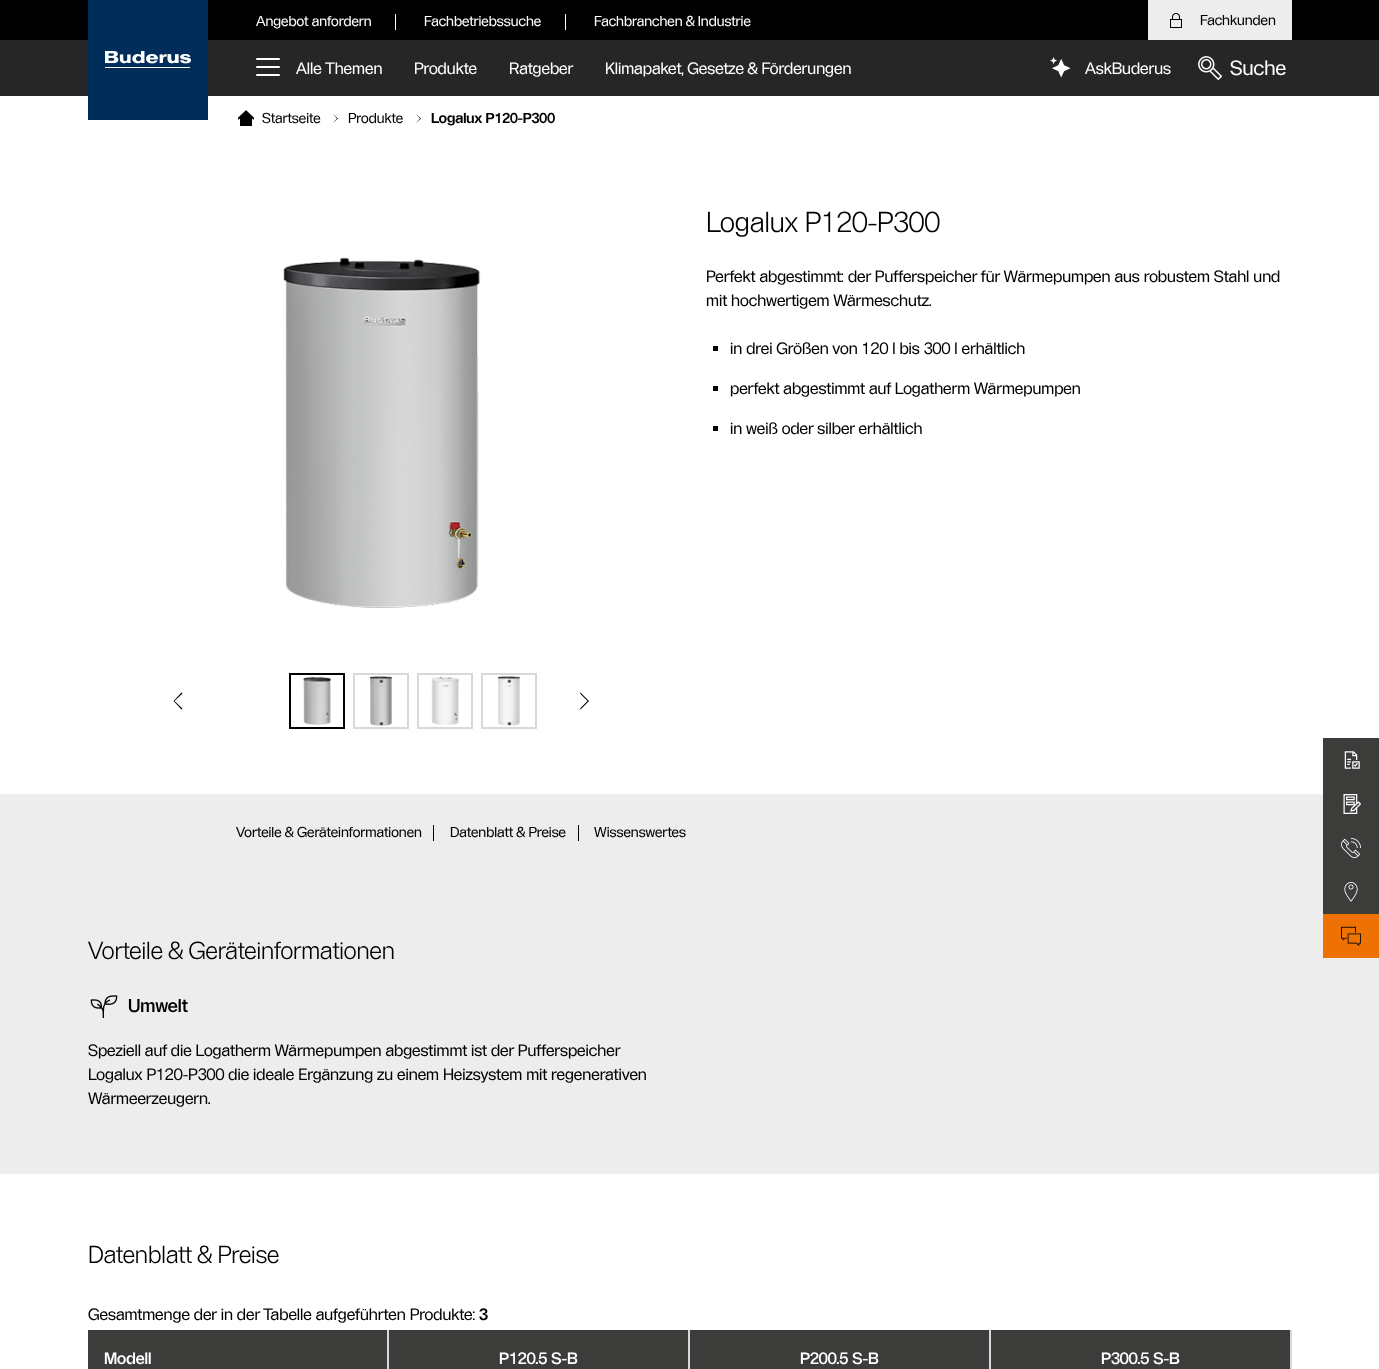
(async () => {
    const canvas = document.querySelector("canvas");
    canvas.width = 1379;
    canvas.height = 1369;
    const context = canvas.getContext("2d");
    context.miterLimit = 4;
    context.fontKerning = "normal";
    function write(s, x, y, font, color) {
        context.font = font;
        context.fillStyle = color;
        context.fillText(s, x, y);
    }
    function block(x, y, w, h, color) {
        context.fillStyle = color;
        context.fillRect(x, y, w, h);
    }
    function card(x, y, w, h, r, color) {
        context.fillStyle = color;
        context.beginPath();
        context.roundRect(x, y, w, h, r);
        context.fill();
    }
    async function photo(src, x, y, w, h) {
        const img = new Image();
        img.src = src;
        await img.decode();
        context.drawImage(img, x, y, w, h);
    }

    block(0, 0, 1379, 1369, "rgb(255, 255, 255)");
    block(0, 40, 1379, 56, "rgb(38, 38, 38)");
    block(0, 0, 1379, 40, "rgb(0, 0, 0)");
    block(88, 0, 120, 120, "rgb(0, 45, 89)");
    await photo("media/1.png", 105, 51, 86, 17);
    write("Angebot anfordern", 256, 26, "14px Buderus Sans", "rgb(255, 255, 255)");
    block(395, 14, 1, 16, "rgb(255, 255, 255)");
    write("Fachbetriebssuche", 424, 26, "14px Buderus Sans", "rgb(255, 255, 255)");
    block(565, 14, 1, 16, "rgb(255, 255, 255)");
    write("Fachbranchen & Industrie", 594, 26, "14px Buderus Sans", "rgb(255, 255, 255)");
    block(1148, 0, 144, 40, "rgb(237, 237, 237)");
    await photo("media/2.png", 1170, 13, 12, 15);
    write("Fachkunden", 1200, 25, "14px Buderus Sans", "rgb(0, 0, 0)");
    card(256, 58, 24, 2, 1, "rgb(255, 255, 255)");
    card(256, 66, 24, 2, 1, "rgb(255, 255, 255)");
    card(256, 74, 24, 2, 1, "rgb(255, 255, 255)");
    write("Alle Themen", 296, 74, "16px Buderus Sans", "rgb(255, 255, 255)");
    write("Produkte", 414, 74, "16px Buderus Sans", "rgb(255, 255, 255)");
    write("Ratgeber", 509, 74, "16px Buderus Sans", "rgb(255, 255, 255)");
    write("Klimapaket, Gesetze & Förderungen", 605, 74, "16px Buderus Sans", "rgb(255, 255, 255)");
    await photo("media/3.png", 1050, 57, 21, 21);
    write("AskBuderus", 1085, 74, "16px Buderus Sans", "rgb(255, 255, 255)");
    await photo("media/4.png", 1198, 56, 24, 24);
    write("Suche", 1230, 75, "20px Buderus Sans", "rgb(255, 255, 255)");
    await photo("media/5.png", 238, 110, 16, 16);
    write("Startseite", 262, 123, "14px Buderus Sans", "rgb(0, 0, 0)");
    context.beginPath();
    context.moveTo(333, 114);
    context.lineTo(338, 118.5);
    context.lineTo(333, 123);
    context.lineTo(337, 118.5);
    context.closePath();
    context.fill();
    write("Produkte", 348, 123, "14px Buderus Sans", "rgb(0, 0, 0)");
    context.beginPath();
    context.moveTo(416, 114);
    context.lineTo(421, 118.5);
    context.lineTo(416, 123);
    context.lineTo(420, 118.5);
    context.closePath();
    context.fill();
    write("Logalux P120-P300", 431, 123, "bold 14px Buderus Sans", "rgb(0, 0, 0)");
    await photo("media/6.png", 283, 257, 198, 351);
    context.strokeStyle = "rgb(0, 0, 0)";
    context.lineWidth = 2;
    context.strokeRect(290, 674, 54, 54);
    await photo("media/7.png", 303, 676, 28, 50);
    context.strokeStyle = "rgb(216, 216, 216)";
    context.strokeRect(354, 674, 54, 54);
    await photo("media/8.png", 370, 676, 22, 50);
    context.strokeRect(418, 674, 54, 54);
    await photo("media/9.png", 431, 676, 28, 49);
    context.strokeRect(482, 674, 54, 54);
    await photo("media/10.png", 498, 676, 22, 50);
    context.beginPath();
    context.moveTo(181.5, 709.5);
    context.lineTo(173.5, 701);
    context.lineTo(181.5, 692.5);
    context.lineTo(182.5, 693.5);
    context.lineTo(174.5, 701);
    context.lineTo(182.5, 708.5);
    context.closePath();
    context.fill();
    context.beginPath();
    context.moveTo(580.5, 692.5);
    context.lineTo(589, 701);
    context.lineTo(580.5, 709.5);
    context.lineTo(580, 708.5);
    context.lineTo(587.5, 701);
    context.lineTo(580, 693.5);
    context.closePath();
    context.fill();
    write("Logalux P120-P300", 706, 232, "300 28px Buderus Sans", "rgb(0, 0, 0)");
    write("Perfekt abgestimmt: der Pufferspeicher für Wärmepumpen aus robustem Stahl und", 706, 282, "16px Buderus Sans", "rgb(0, 0, 0)");
    write("mit hochwertigem Wärmeschutz.", 706, 306, "16px Buderus Sans", "rgb(0, 0, 0)");
    block(713, 346, 5, 5, "rgb(0, 0, 0)");
    write("in drei Größen von 120 l bis 300 l erhältlich", 730, 354, "16px Buderus Sans", "rgb(0, 0, 0)");
    block(713, 386, 5, 5, "rgb(0, 0, 0)");
    write("perfekt abgestimmt auf Logatherm Wärmepumpen", 730, 394, "16px Buderus Sans", "rgb(0, 0, 0)");
    block(713, 426, 5, 5, "rgb(0, 0, 0)");
    write("in weiß oder silber erhältlich", 730, 434, "16px Buderus Sans", "rgb(0, 0, 0)");
    block(0, 794, 1323, 76, "rgb(237, 237, 237)");
    write("Vorteile & Geräteinformationen", 236, 837, "14px Buderus Sans", "rgb(0, 0, 0)");
    block(433, 825, 1, 16, "rgb(0, 0, 0)");
    write("Datenblatt & Preise", 450, 837, "14px Buderus Sans", "rgb(0, 0, 0)");
    block(578, 825, 1, 16, "rgb(0, 0, 0)");
    write("Wissenswertes", 594, 837, "14px Buderus Sans", "rgb(0, 0, 0)");
    block(0, 870, 1379, 304, "rgb(237, 237, 237)");
    write("Vorteile & Geräteinformationen", 88, 959, "300 24px Buderus Sans", "rgb(0, 0, 0)");
    await photo("media/11.png", 90, 995, 28, 23);
    write("Umwelt", 128, 1012, "500 18px Buderus Sans", "rgb(0, 0, 0)");
    write("Speziell auf die Logatherm Wärmepumpen abgestimmt ist der Pufferspeicher", 88, 1056, "16px Buderus Sans", "rgb(0, 0, 0)");
    write("Logalux P120-P300 die ideale Ergänzung zu einem Heizsystem mit regenerativen", 88, 1080, "16px Buderus Sans", "rgb(0, 0, 0)");
    write("Wärmeerzeugern.", 88, 1104, "16px Buderus Sans", "rgb(0, 0, 0)");
    write("Datenblatt & Preise", 88, 1263, "300 24px Buderus Sans", "rgb(0, 0, 0)");
    write("Gesamtmenge der in der Tabelle aufgeführten Produkte:", 88, 1320, "16px Buderus Sans", "rgb(0, 0, 0)");
    write("3", 479, 1320, "bold 16px Buderus Sans", "rgb(0, 0, 0)");
    block(88, 1330, 1202, 39, "rgb(60, 60, 59)");
    block(387, 1330, 2, 39, "rgb(216, 216, 216)");
    write("Modell", 104, 1364, "500 16px Buderus Sans", "rgb(255, 255, 255)");
    block(688, 1330, 2, 39, "rgb(216, 216, 216)");
    write("P120.5 S-B", 499, 1364, "500 16px Buderus Sans", "rgb(255, 255, 255)");
    block(989, 1330, 2, 39, "rgb(216, 216, 216)");
    write("P200.5 S-B", 800, 1364, "500 16px Buderus Sans", "rgb(255, 255, 255)");
    block(1290, 1330, 2, 39, "rgb(216, 216, 216)");
    write("P300.5 S-B", 1101, 1364, "500 16px Buderus Sans", "rgb(255, 255, 255)");
    block(1323, 738, 56, 176, "rgb(60, 60, 59)");
    await photo("media/12.png", 1344, 751, 16, 18);
    await photo("media/13.png", 1343, 794, 18, 20);
    await photo("media/14.png", 1341, 838, 20, 20);
    await photo("media/15.png", 1344, 882, 14, 20);
    block(1323, 914, 56, 44, "rgb(238, 114, 3)");
    await photo("media/16.png", 1341, 926, 20, 20);
})();
